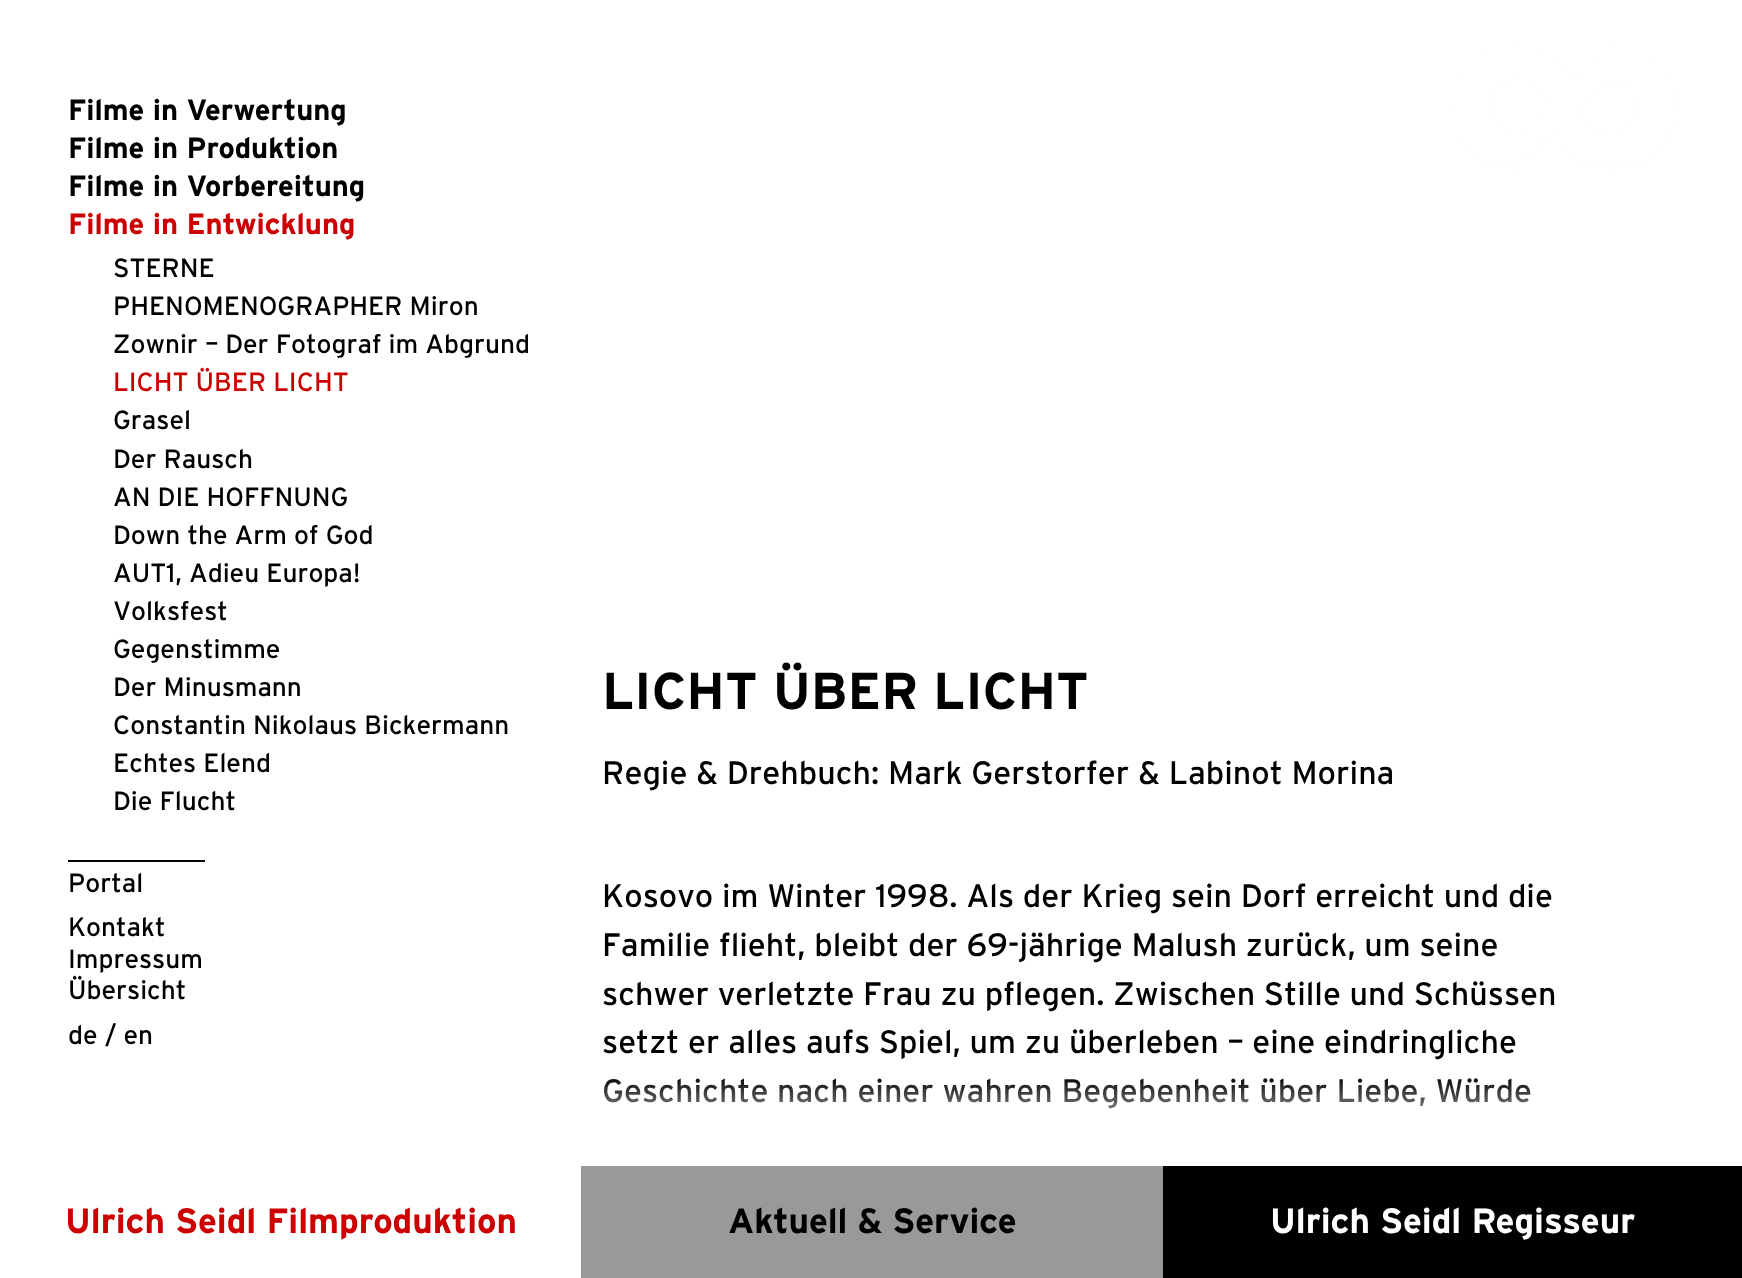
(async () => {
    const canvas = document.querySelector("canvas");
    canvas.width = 1742;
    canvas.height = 1278;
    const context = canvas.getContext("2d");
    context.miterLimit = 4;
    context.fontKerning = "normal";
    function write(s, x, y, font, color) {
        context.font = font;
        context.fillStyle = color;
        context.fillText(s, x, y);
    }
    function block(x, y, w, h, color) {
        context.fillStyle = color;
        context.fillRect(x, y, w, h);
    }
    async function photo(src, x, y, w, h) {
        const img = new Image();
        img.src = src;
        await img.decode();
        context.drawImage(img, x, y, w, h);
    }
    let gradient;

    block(0, 0, 1742, 1278, "rgb(255, 255, 255)");
    write("Filme in Verwertung", 68, 120, "bold 29.25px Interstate", "rgb(0, 0, 0)");
    write("Filme in Produktion", 68, 158, "bold 29.25px Interstate", "rgb(0, 0, 0)");
    write("Filme in Vorbereitung", 68, 196, "bold 29.25px Interstate", "rgb(0, 0, 0)");
    write("Filme in Entwicklung", 68, 234, "bold 29.25px Interstate", "rgb(204, 0, 0)");
    write("STERNE", 113, 277, "26.3px Interstate", "rgb(0, 0, 0)");
    write("PHENOMENOGRAPHER Miron", 113, 315, "26.3px Interstate", "rgb(0, 0, 0)");
    write("Zownir – Der Fotograf im Abgrund", 113, 353, "26.3px Interstate", "rgb(0, 0, 0)");
    write("LICHT ÜBER LICHT", 113, 391, "26.3px Interstate", "rgb(204, 0, 0)");
    write("Grasel", 113, 429, "26.3px Interstate", "rgb(0, 0, 0)");
    write("Der Rausch", 113, 468, "26.3px Interstate", "rgb(0, 0, 0)");
    write("AN DIE HOFFNUNG", 113, 506, "26.3px Interstate", "rgb(0, 0, 0)");
    write("Down the Arm of God", 113, 544, "26.3px Interstate", "rgb(0, 0, 0)");
    write("AUT1, Adieu Europa!", 113, 582, "26.3px Interstate", "rgb(0, 0, 0)");
    write("Volksfest", 113, 620, "26.3px Interstate", "rgb(0, 0, 0)");
    write("Gegenstimme", 113, 658, "26.3px Interstate", "rgb(0, 0, 0)");
    write("Der Minusmann", 113, 696, "26.3px Interstate", "rgb(0, 0, 0)");
    write("Constantin Nikolaus Bickermann", 113, 734, "26.3px Interstate", "rgb(0, 0, 0)");
    write("Echtes Elend", 113, 772, "26.3px Interstate", "rgb(0, 0, 0)");
    write("Die Flucht", 113, 810, "26.3px Interstate", "rgb(0, 0, 0)");
    await photo("media/1.png", 1451, 45, 226, 124);
    block(68, 860, 137, 2, "rgb(0, 0, 0)");
    write("Portal", 68, 892, "26.3px Interstate", "rgb(0, 0, 0)");
    write("Kontakt", 68, 936, "26.3px Interstate", "rgb(0, 0, 0)");
    write("Impressum", 68, 968, "26.3px Interstate", "rgb(0, 0, 0)");
    write("Übersicht", 68, 999, "26.3px Interstate", "rgb(0, 0, 0)");
    write("de / en", 68, 1044, "26.3px Interstate", "rgb(0, 0, 0)");
    write("LICHT ÜBER LICHT", 602, 709, "bold 51.75px Interstate", "rgb(0, 0, 0)");
    write("Regie & Drehbuch: Mark Gerstorfer & Labinot Morina", 602, 784, "32.4px Interstate", "rgb(0, 0, 0)");
    write("Kosovo im Winter 1998. Als der Krieg sein Dorf erreicht und die", 602, 907, "32.4px Interstate", "rgb(0, 0, 0)");
    write("Familie flieht, bleibt der 69-jährige Malush zurück, um seine", 602, 956, "32.4px Interstate", "rgb(0, 0, 0)");
    write("schwer verletzte Frau zu pflegen. Zwischen Stille und Schüssen", 602, 1005, "32.4px Interstate", "rgb(0, 0, 0)");
    write("setzt er alles aufs Spiel, um zu überleben – eine eindringliche", 602, 1053, "32.4px Interstate", "rgb(0, 0, 0)");
    write("Geschichte nach einer wahren Begebenheit über Liebe, Würde", 602, 1102, "32.4px Interstate", "rgb(0, 0, 0)");
    gradient = context.createLinearGradient(872, 1075, 872, 1166);
    gradient.addColorStop(0, "rgba(255, 255, 255, 0)");
    gradient.addColorStop(0.8, "rgb(255, 255, 255)");
    context.fillStyle = gradient;
    context.fillRect(603, 1078, 928, 31);
    write("Ulrich Seidl Filmproduktion", 65, 1233, "bold 35.1px Interstate", "rgb(204, 0, 0)");
    block(581, 1166, 582, 112, "rgb(153, 153, 153)");
    write("Aktuell & Service", 728, 1233, "bold 35.1px Interstate", "rgb(0, 0, 0)");
    block(1163, 1166, 579, 112, "rgb(0, 0, 0)");
    write("Ulrich Seidl Regisseur", 1270, 1233, "bold 35.1px Interstate", "rgb(255, 255, 255)");
})();
